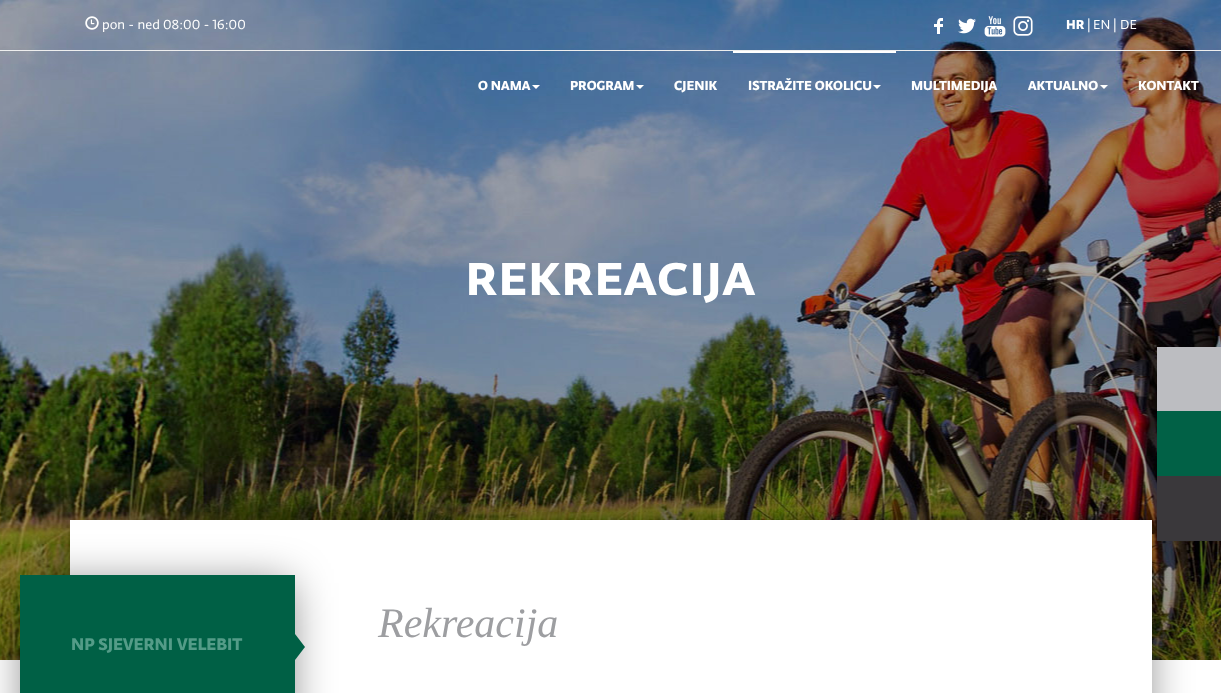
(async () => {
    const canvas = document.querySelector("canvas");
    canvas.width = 1221;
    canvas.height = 693;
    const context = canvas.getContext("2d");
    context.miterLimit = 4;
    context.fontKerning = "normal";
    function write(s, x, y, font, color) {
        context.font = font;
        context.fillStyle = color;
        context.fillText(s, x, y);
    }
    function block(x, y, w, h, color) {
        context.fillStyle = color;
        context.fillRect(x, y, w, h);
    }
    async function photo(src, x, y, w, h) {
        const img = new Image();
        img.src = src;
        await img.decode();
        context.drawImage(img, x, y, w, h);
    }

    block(0, 0, 1221, 693, "rgb(255, 255, 255)");
    await photo("media/1.png", 0, 0, 1221, 660);
    await photo("media/2.png", 85, 16, 14, 14);
    write("pon - ned 08:00 - 16:00", 102, 29, "14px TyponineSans", "rgb(255, 255, 255)");
    await photo("media/3.png", 934, 18, 9, 16);
    await photo("media/4.png", 958, 18, 18, 16);
    await photo("media/5.png", 984, 16, 22, 21);
    await photo("media/6.png", 1013, 16, 20, 20);
    write("HR", 1066, 29, "bold 14px TyponineSans", "rgb(255, 255, 255)");
    write("|", 1087, 29, "14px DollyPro", "rgb(255, 255, 255)");
    write("EN", 1093, 29, "14px TyponineSans", "rgb(255, 255, 255)");
    write("|", 1113, 29, "14px DollyPro", "rgb(255, 255, 255)");
    write("DE", 1120, 29, "14px TyponineSans", "rgb(255, 255, 255)");
    block(0, 50, 1221, 1, "rgb(238, 238, 238)");
    write("O NAMA", 478, 90, "bold 14px TyponineSans", "rgb(255, 255, 255)");
    context.beginPath();
    context.moveTo(532, 85);
    context.lineTo(540, 85);
    context.lineTo(536, 89);
    context.closePath();
    context.fill();
    write("PROGRAM", 570, 90, "bold 14px TyponineSans", "rgb(255, 255, 255)");
    context.beginPath();
    context.moveTo(636, 85);
    context.lineTo(644, 85);
    context.lineTo(640, 89);
    context.closePath();
    context.fill();
    write("CJENIK", 674, 90, "bold 14px TyponineSans", "rgb(255, 255, 255)");
    block(733, 51, 163, 2, "rgb(255, 255, 255)");
    write("ISTRAŽITE OKOLICU", 748, 90, "bold 14px TyponineSans", "rgb(255, 255, 255)");
    context.beginPath();
    context.moveTo(873, 85);
    context.lineTo(881, 85);
    context.lineTo(877, 89);
    context.closePath();
    context.fill();
    write("MULTIMEDIJA", 911, 90, "bold 14px TyponineSans", "rgb(255, 255, 255)");
    write("AKTUALNO", 1028, 90, "bold 14px TyponineSans", "rgb(255, 255, 255)");
    context.beginPath();
    context.moveTo(1100, 85);
    context.lineTo(1108, 85);
    context.lineTo(1104, 89);
    context.closePath();
    context.fill();
    write("KONTAKT", 1138, 90, "bold 14px TyponineSans", "rgb(255, 255, 255)");
    write("rekreacija", 465, 295, "500 63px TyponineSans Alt", "rgb(255, 255, 255)");
    block(1157, 347, 64, 64, "rgb(188, 189, 193)");
    context.fillStyle = "rgba(0, 0, 0, 0.5)";
    context.filter = "blur(21.5px)";
    context.beginPath();
    context.rect(75, 523, 1072, 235);
    context.fill();
    context.filter = "none";
    block(1157, 411, 64, 65, "rgb(1, 97, 70)");
    block(1157, 476, 64, 65, "rgb(58, 56, 59)");
    block(70, 520, 1082, 173, "rgb(255, 255, 255)");
    context.fillStyle = "rgba(0, 0, 0, 0.5)";
    context.filter = "blur(21.5px)";
    context.beginPath();
    context.rect(25, 583, 265, 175);
    context.fill();
    context.filter = "none";
    block(20, 575, 275, 118, "rgb(0, 96, 69)");
    write("NP SJEVERNI VELEBIT", 71, 650, "bold 18px TyponineSans", "rgb(84, 156, 136)");
    context.fillStyle = "rgb(0, 96, 69)";
    context.beginPath();
    context.moveTo(295, 660);
    context.lineTo(295, 634);
    context.lineTo(305, 647);
    context.closePath();
    context.fill();
    write("Rekreacija", 378, 637, "italic 42px Liberation Serif", "rgb(157, 158, 161)");
})();
